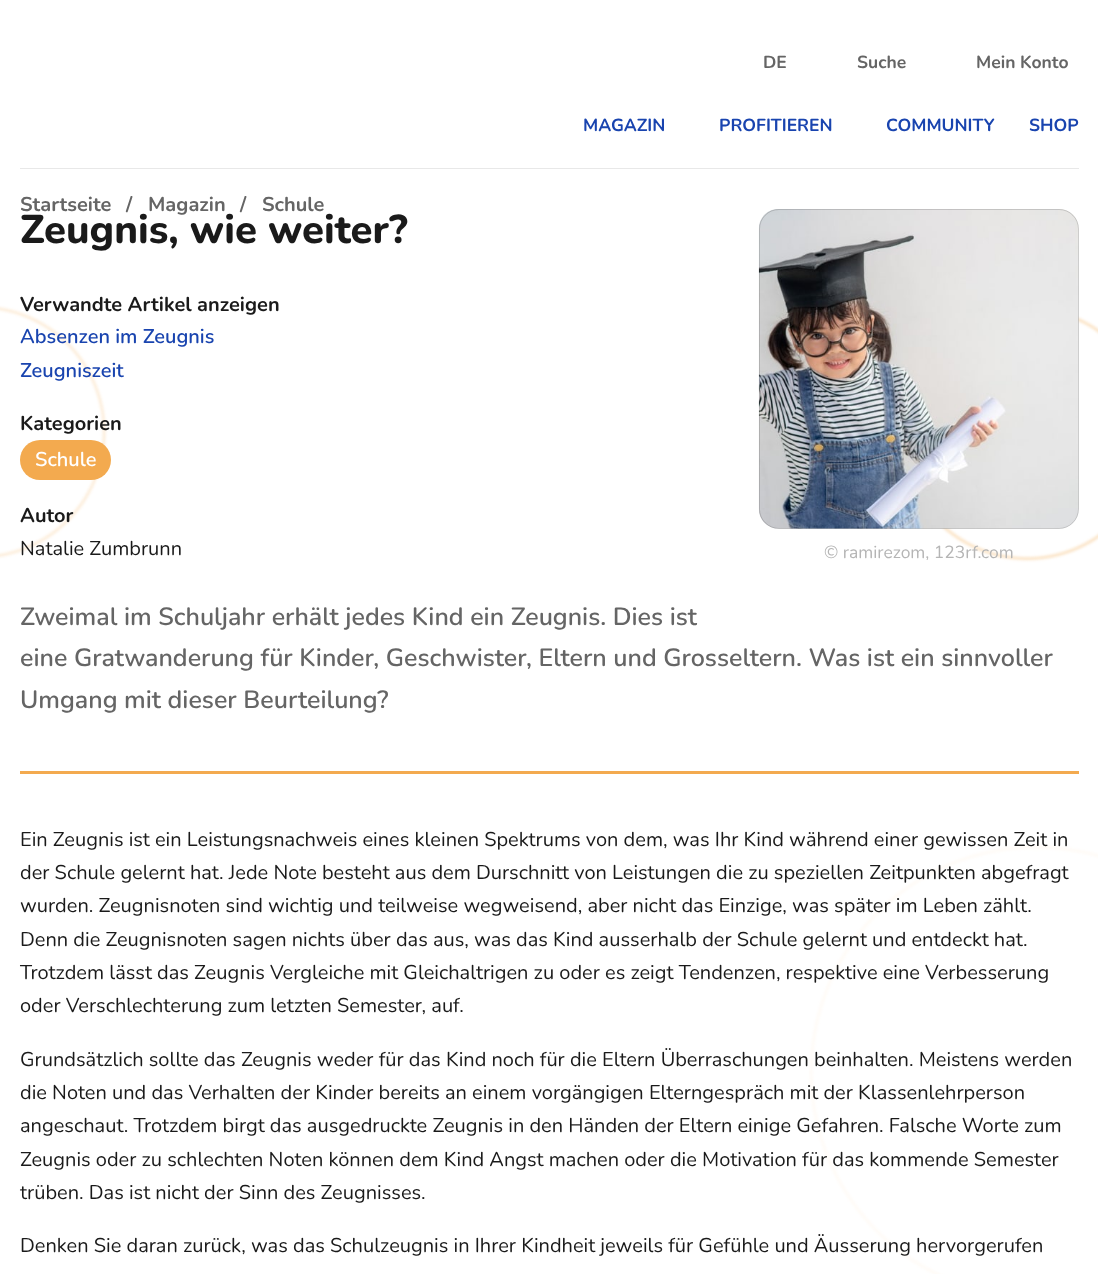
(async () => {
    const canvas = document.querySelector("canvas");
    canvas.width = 1098;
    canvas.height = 1274;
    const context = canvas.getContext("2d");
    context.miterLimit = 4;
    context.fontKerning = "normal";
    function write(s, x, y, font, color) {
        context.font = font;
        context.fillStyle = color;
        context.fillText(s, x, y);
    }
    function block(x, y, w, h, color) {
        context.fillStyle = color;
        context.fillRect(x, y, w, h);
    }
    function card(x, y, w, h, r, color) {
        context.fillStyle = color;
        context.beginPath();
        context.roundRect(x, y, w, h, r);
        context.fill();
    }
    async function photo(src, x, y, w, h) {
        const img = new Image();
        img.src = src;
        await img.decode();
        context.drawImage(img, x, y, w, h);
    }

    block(0, 0, 1098, 1274, "rgb(255, 255, 255)");
    block(20, 168, 1059, 1, "rgb(232, 232, 232)");
    write("DE", 763, 68, "bold 17.5px Nunito", "rgb(101, 101, 101)");
    write("Suche", 857, 68, "bold 17.5px Nunito", "rgb(101, 101, 101)");
    write("Mein Konto", 976, 68, "bold 17.5px Nunito", "rgb(101, 101, 101)");
    write("MAGAZIN", 583, 131, "bold 17.5px Nunito", "rgb(25, 68, 175)");
    write("PROFITIEREN", 719, 131, "bold 17.5px Nunito", "rgb(25, 68, 175)");
    write("COMMUNITY", 886, 131, "bold 17.5px Nunito", "rgb(25, 68, 175)");
    write("SHOP", 1029, 131, "bold 17.5px Nunito", "rgb(25, 68, 175)");
    write("Startseite", 20, 211, "bold 20px Nunito", "rgb(101, 101, 101)");
    write("/", 126, 211, "bold 20px Nunito", "rgb(101, 101, 101)");
    write("Magazin", 148, 211, "bold 20px Nunito", "rgb(101, 101, 101)");
    write("/", 240, 211, "bold 20px Nunito", "rgb(101, 101, 101)");
    write("Schule", 262, 211, "bold 20px Nunito", "rgb(101, 101, 101)");
    write("Zeugnis, wie weiter?", 20, 243, "800 40px Nunito", "rgb(26, 26, 26)");
    await photo("media/2.png", 0, 305, 1098, 969);
    write("Verwandte Artikel anzeigen", 20, 311, "bold 20px Nunito", "rgb(26, 26, 26)");
    write("Absenzen im Zeugnis", 20, 343, "600 20px Nunito", "rgb(25, 68, 175)");
    write("Zeugniszeit", 20, 377, "600 20px Nunito", "rgb(25, 68, 175)");
    write("Kategorien", 20, 430, "bold 20px Nunito", "rgb(26, 26, 26)");
    card(20, 440, 91, 40, 20, "rgb(243, 170, 79)");
    write("Schule", 35, 466, "600 20px Nunito", "rgb(255, 255, 255)");
    write("Autor", 20, 522, "bold 20px Nunito", "rgb(26, 26, 26)");
    write("Natalie Zumbrunn", 20, 555, "20px Nunito", "rgb(26, 26, 26)");
    await photo("media/1.png", 758, 209, 321, 320);
    context.beginPath();
    context.roundRect(759.5, 209.5, 319, 319, 19.5);
    context.strokeStyle = "rgba(0, 0, 0, 0.15)";
    context.stroke();
    write("© ramirezom, 123rf.com", 824, 558, "17.5px Nunito", "rgb(181, 181, 181)");
    write("Zweimal im Schuljahr erhält jedes Kind ein Zeugnis. Dies ist", 20, 625, "600 25px Nunito", "rgb(101, 101, 101)");
    write("eine Gratwanderung für Kinder, Geschwister, Eltern und Grosseltern. Was ist ein sinnvoller", 20, 666, "600 25px Nunito", "rgb(101, 101, 101)");
    write("Umgang mit dieser Beurteilung?", 20, 708, "600 25px Nunito", "rgb(101, 101, 101)");
    block(20, 771, 1059, 3, "rgb(243, 170, 79)");
    write("Ein Zeugnis ist ein Leistungsnachweis eines kleinen Spektrums von dem, was Ihr Kind während einer gewissen Zeit in", 20, 846, "20px Nunito", "rgb(26, 26, 26)");
    write("der Schule gelernt hat. Jede Note besteht aus dem Durschnitt von Leistungen die zu speziellen Zeitpunkten abgefragt", 20, 879, "20px Nunito", "rgb(26, 26, 26)");
    write("wurden. Zeugnisnoten sind wichtig und teilweise wegweisend, aber nicht das Einzige, was später im Leben zählt.", 20, 912, "20px Nunito", "rgb(26, 26, 26)");
    write("Denn die Zeugnisnoten sagen nichts über das aus, was das Kind ausserhalb der Schule gelernt und entdeckt hat.", 20, 946, "20px Nunito", "rgb(26, 26, 26)");
    write("Trotzdem lässt das Zeugnis Vergleiche mit Gleichaltrigen zu oder es zeigt Tendenzen, respektive eine Verbesserung", 20, 979, "20px Nunito", "rgb(26, 26, 26)");
    write("oder Verschlechterung zum letzten Semester, auf.", 20, 1012, "20px Nunito", "rgb(26, 26, 26)");
    write("Grundsätzlich sollte das Zeugnis weder für das Kind noch für die Eltern Überraschungen beinhalten. Meistens werden", 20, 1066, "20px Nunito", "rgb(26, 26, 26)");
    write("die Noten und das Verhalten der Kinder bereits an einem vorgängigen Elterngespräch mit der Klassenlehrperson", 20, 1099, "20px Nunito", "rgb(26, 26, 26)");
    write("angeschaut. Trotzdem birgt das ausgedruckte Zeugnis in den Händen der Eltern einige Gefahren. Falsche Worte zum", 20, 1132, "20px Nunito", "rgb(26, 26, 26)");
    write("Zeugnis oder zu schlechten Noten können dem Kind Angst machen oder die Motivation für das kommende Semester", 20, 1166, "20px Nunito", "rgb(26, 26, 26)");
    write("trüben. Das ist nicht der Sinn des Zeugnisses.", 20, 1199, "20px Nunito", "rgb(26, 26, 26)");
    write("Denken Sie daran zurück, was das Schulzeugnis in Ihrer Kindheit jeweils für Gefühle und Äusserung hervorgerufen", 20, 1252, "20px Nunito", "rgb(26, 26, 26)");
})();
